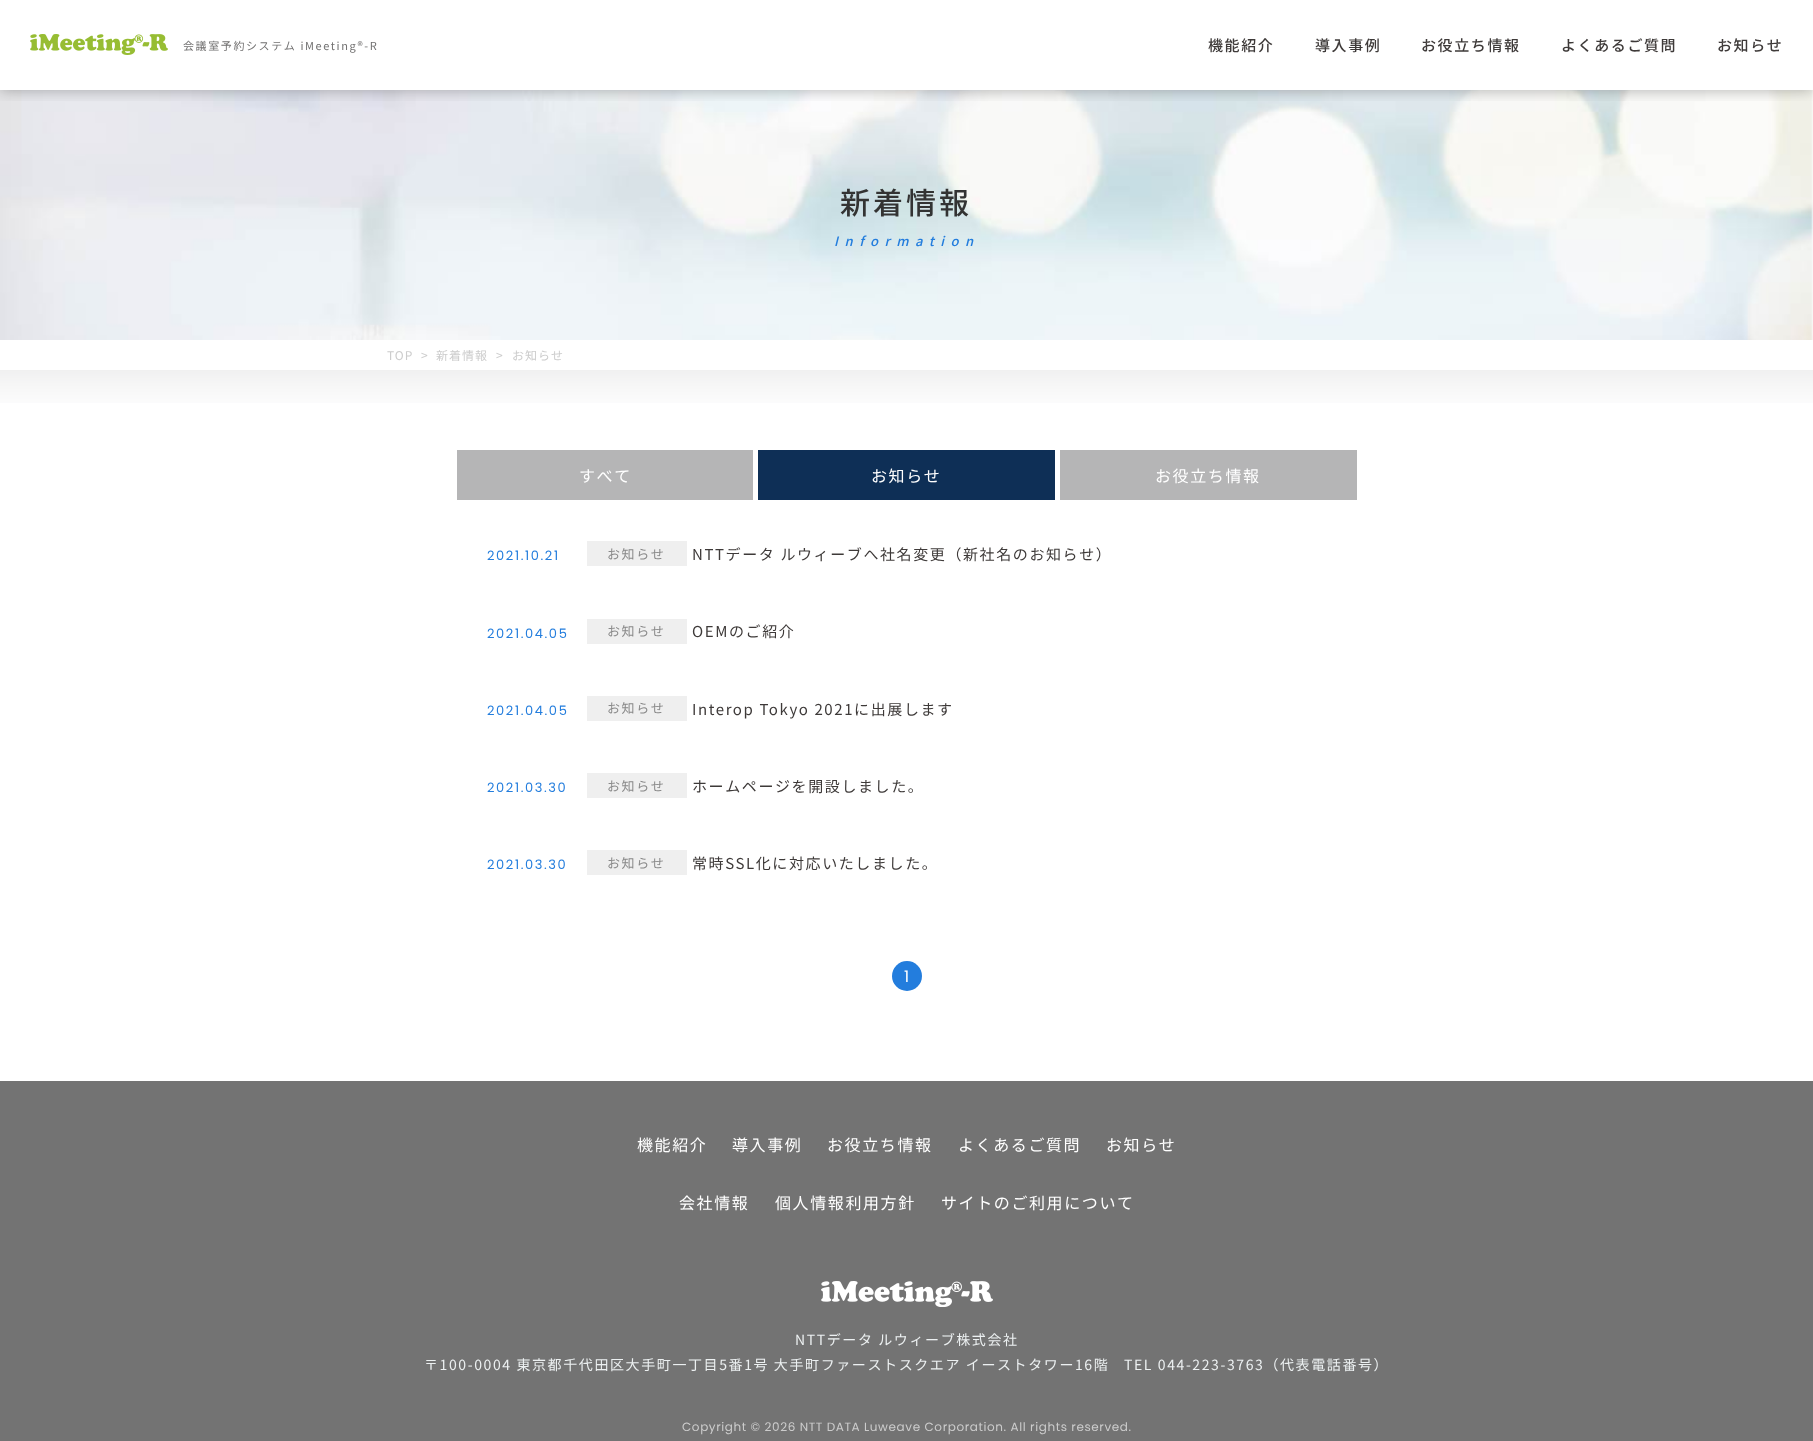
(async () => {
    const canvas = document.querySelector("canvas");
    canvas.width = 1813;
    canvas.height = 1441;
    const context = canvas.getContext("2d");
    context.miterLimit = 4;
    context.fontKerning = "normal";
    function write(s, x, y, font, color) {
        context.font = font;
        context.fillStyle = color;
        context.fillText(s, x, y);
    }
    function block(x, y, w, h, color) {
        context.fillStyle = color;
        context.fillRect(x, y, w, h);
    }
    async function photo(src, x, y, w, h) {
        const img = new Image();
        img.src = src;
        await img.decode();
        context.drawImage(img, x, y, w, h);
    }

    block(0, 0, 1813, 1441, "rgb(255, 255, 255)");
    await photo("media/2.png", 0, 90, 1813, 250);
    context.save();
    context.beginPath();
    context.rect(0, 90, 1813, 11);
    context.clip();
    context.fillStyle = "rgba(0, 0, 0, 0.3)";
    context.filter = "blur(7.5px)";
    context.beginPath();
    context.rect(0, 0, 1813, 90);
    context.fill();
    context.filter = "none";
    context.restore();
    await photo("media/1.png", 30, 34, 138, 21);
    context.letterSpacing = "1.6px";
    write("会議室予約システム iMeeting®-R", 183, 50, "11px Noto Sans JP", "rgb(114, 113, 113)");
    write("機能紹介", 1208, 51, "500 15px Noto Sans JP", "rgb(62, 58, 57)");
    write("導入事例", 1315, 51, "500 15px Noto Sans JP", "rgb(62, 58, 57)");
    write("お役立ち情報", 1421, 51, "500 15px Noto Sans JP", "rgb(62, 58, 57)");
    write("よくあるご質問", 1561, 51, "500 15px Noto Sans JP", "rgb(62, 58, 57)");
    write("お知らせ", 1717, 51, "500 15px Noto Sans JP", "rgb(62, 58, 57)");
    context.letterSpacing = "3px";
    write("新着情報", 840, 214, "500 30px Noto Sans JP", "rgb(51, 51, 51)");
    context.letterSpacing = "6.5px";
    write("Information", 834, 246, "italic 500 13px Noto Sans JP", "rgb(35, 125, 221)");
    context.letterSpacing = "1px";
    write("TOP", 387, 360, "12px Noto Sans JP", "rgb(204, 204, 204)");
    context.letterSpacing = "1.6px";
    write(">", 421, 360, "12px Noto Sans JP", "rgb(204, 204, 204)");
    context.letterSpacing = "1px";
    write("新着情報", 436, 360, "12px Noto Sans JP", "rgb(204, 204, 204)");
    context.letterSpacing = "1.6px";
    write(">", 496, 360, "12px Noto Sans JP", "rgb(204, 204, 204)");
    context.letterSpacing = "1px";
    write("お知らせ", 512, 360, "12px Noto Sans JP", "rgb(204, 204, 204)");
    await photo("media/3.png", 0, 370, 1813, 33);
    block(457, 450, 296, 50, "rgb(181, 181, 182)");
    context.letterSpacing = "1.6px";
    write("すべて", 579, 482, "16px Noto Sans JP", "rgb(255, 255, 255)");
    block(758, 450, 297, 50, "rgb(14, 47, 86)");
    write("お知らせ", 871, 482, "16px Noto Sans JP", "rgb(255, 255, 255)");
    block(1060, 450, 297, 50, "rgb(181, 181, 182)");
    write("お役立ち情報", 1155, 482, "16px Noto Sans JP", "rgb(255, 255, 255)");
    write("2021.10.21", 487, 560, "13px Poppins", "rgb(35, 125, 221)");
    block(587, 541, 100, 25, "rgb(239, 239, 239)");
    write("お知らせ", 607, 559, "13px Noto Sans JP", "rgb(137, 137, 137)");
    write("NTTデータ ルウィーブへ社名変更（新社名のお知らせ）", 692, 560, "15px Noto Sans JP", "rgb(62, 58, 57)");
    write("2021.04.05", 487, 638, "13px Poppins", "rgb(35, 125, 221)");
    block(587, 619, 100, 25, "rgb(239, 239, 239)");
    write("お知らせ", 607, 636, "13px Noto Sans JP", "rgb(137, 137, 137)");
    write("OEMのご紹介", 692, 637, "15px Noto Sans JP", "rgb(62, 58, 57)");
    write("2021.04.05", 487, 715, "13px Poppins", "rgb(35, 125, 221)");
    block(587, 696, 100, 25, "rgb(239, 239, 239)");
    write("お知らせ", 607, 713, "13px Noto Sans JP", "rgb(137, 137, 137)");
    write("Interop Tokyo 2021に出展します", 692, 715, "15px Noto Sans JP", "rgb(62, 58, 57)");
    write("2021.03.30", 487, 792, "13px Poppins", "rgb(35, 125, 221)");
    block(587, 773, 100, 25, "rgb(239, 239, 239)");
    write("お知らせ", 607, 791, "13px Noto Sans JP", "rgb(137, 137, 137)");
    write("ホームページを開設しました。", 692, 792, "15px Noto Sans JP", "rgb(62, 58, 57)");
    write("2021.03.30", 487, 869, "13px Poppins", "rgb(35, 125, 221)");
    block(587, 850, 100, 25, "rgb(239, 239, 239)");
    write("お知らせ", 607, 868, "13px Noto Sans JP", "rgb(137, 137, 137)");
    write("常時SSL化に対応いたしました。", 692, 869, "15px Noto Sans JP", "rgb(62, 58, 57)");
    context.fillStyle = "rgb(35, 125, 221)";
    context.beginPath();
    context.arc(907, 976, 15, 0, Math.PI * 2);
    context.fill();
    write("1", 904, 982, "16px Poppins", "rgb(255, 255, 255)");
    block(0, 1081, 1813, 360, "rgb(115, 115, 115)");
    write("機能紹介", 637, 1151, "16px Noto Sans JP", "rgb(255, 255, 255)");
    write("導入事例", 732, 1151, "16px Noto Sans JP", "rgb(255, 255, 255)");
    write("お役立ち情報", 827, 1151, "16px Noto Sans JP", "rgb(255, 255, 255)");
    write("よくあるご質問", 958, 1151, "16px Noto Sans JP", "rgb(255, 255, 255)");
    write("お知らせ", 1106, 1151, "16px Noto Sans JP", "rgb(255, 255, 255)");
    write("会社情報", 679, 1209, "16px Noto Sans JP", "rgb(255, 255, 255)");
    write("個人情報利用方針", 775, 1209, "16px Noto Sans JP", "rgb(255, 255, 255)");
    write("サイトのご利用について", 941, 1209, "16px Noto Sans JP", "rgb(255, 255, 255)");
    await photo("media/4.png", 821, 1281, 172, 26);
    write("NTTデータ ルウィーブ株式会社", 795, 1345, "14px Noto Sans JP", "rgb(236, 240, 241)");
    write("〒100-0004 東京都千代田区大手町一丁目5番1号 大手町ファーストスクエア イーストタワー16階", 424, 1370, "14px Noto Sans JP", "rgb(236, 240, 241)");
    write("TEL 044-223-3763（代表電話番号）", 1124, 1370, "14px Noto Sans JP", "rgb(236, 240, 241)");
    context.letterSpacing = "0.6px";
    write("Copyright © 2026 NTT DATA Luweave Corporation. All rights reserved.", 682, 1431, "12px Poppins", "rgb(204, 204, 204)");
})();
